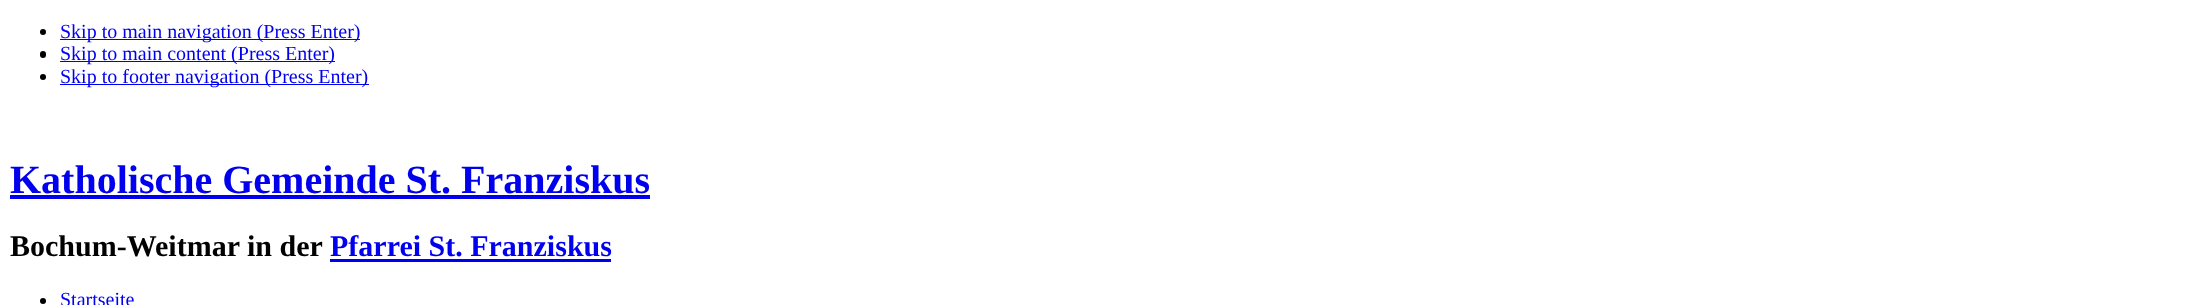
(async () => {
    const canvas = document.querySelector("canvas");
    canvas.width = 2185;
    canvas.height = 305;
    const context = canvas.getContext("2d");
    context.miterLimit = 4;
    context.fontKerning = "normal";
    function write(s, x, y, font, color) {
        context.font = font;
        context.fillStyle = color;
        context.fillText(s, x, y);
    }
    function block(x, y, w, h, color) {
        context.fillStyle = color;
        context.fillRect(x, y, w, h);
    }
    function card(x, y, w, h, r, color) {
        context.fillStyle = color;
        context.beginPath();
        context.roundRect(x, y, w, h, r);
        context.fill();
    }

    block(0, 0, 2185, 305, "rgb(255, 255, 255)");
    context.fillStyle = "rgb(0, 0, 0)";
    context.beginPath();
    context.arc(43, 32, 3, 0, Math.PI * 2);
    context.fill();
    block(60, 39, 300, 1, "rgb(0, 0, 238)");
    write("Skip to main navigation (Press Enter)", 60, 38, "20px Liberation Serif", "rgb(0, 0, 238)");
    card(40, 51, 6, 7, 3, "rgb(0, 0, 0)");
    block(60, 61, 275, 1, "rgb(0, 0, 238)");
    write("Skip to main content (Press Enter)", 60, 60, "20px Liberation Serif", "rgb(0, 0, 238)");
    context.fillStyle = "rgb(0, 0, 0)";
    context.beginPath();
    context.arc(43, 77, 3, 0, Math.PI * 2);
    context.fill();
    block(60, 84, 309, 1, "rgb(0, 0, 238)");
    write("Skip to footer navigation (Press Enter)", 60, 83, "20px Liberation Serif", "rgb(0, 0, 238)");
    write("Katholische Gemeinde St. Franziskus", 10, 193, "bold 40px Liberation Serif", "rgb(0, 0, 238)");
    block(10, 195, 640, 4, "rgb(0, 0, 238)");
    write("Bochum-Weitmar in der", 10, 256, "bold 30px Liberation Serif", "rgb(0, 0, 0)");
    write("Pfarrei St. Franziskus", 330, 256, "bold 30px Liberation Serif", "rgb(0, 0, 238)");
    block(330, 259, 281, 3, "rgb(0, 0, 238)");
    context.fillStyle = "rgb(0, 0, 0)";
    context.beginPath();
    context.arc(43, 301, 3, 0, Math.PI * 2);
    context.fill();
    write("Startseite", 60, 306, "20px Liberation Serif", "rgb(0, 0, 238)");
})();
